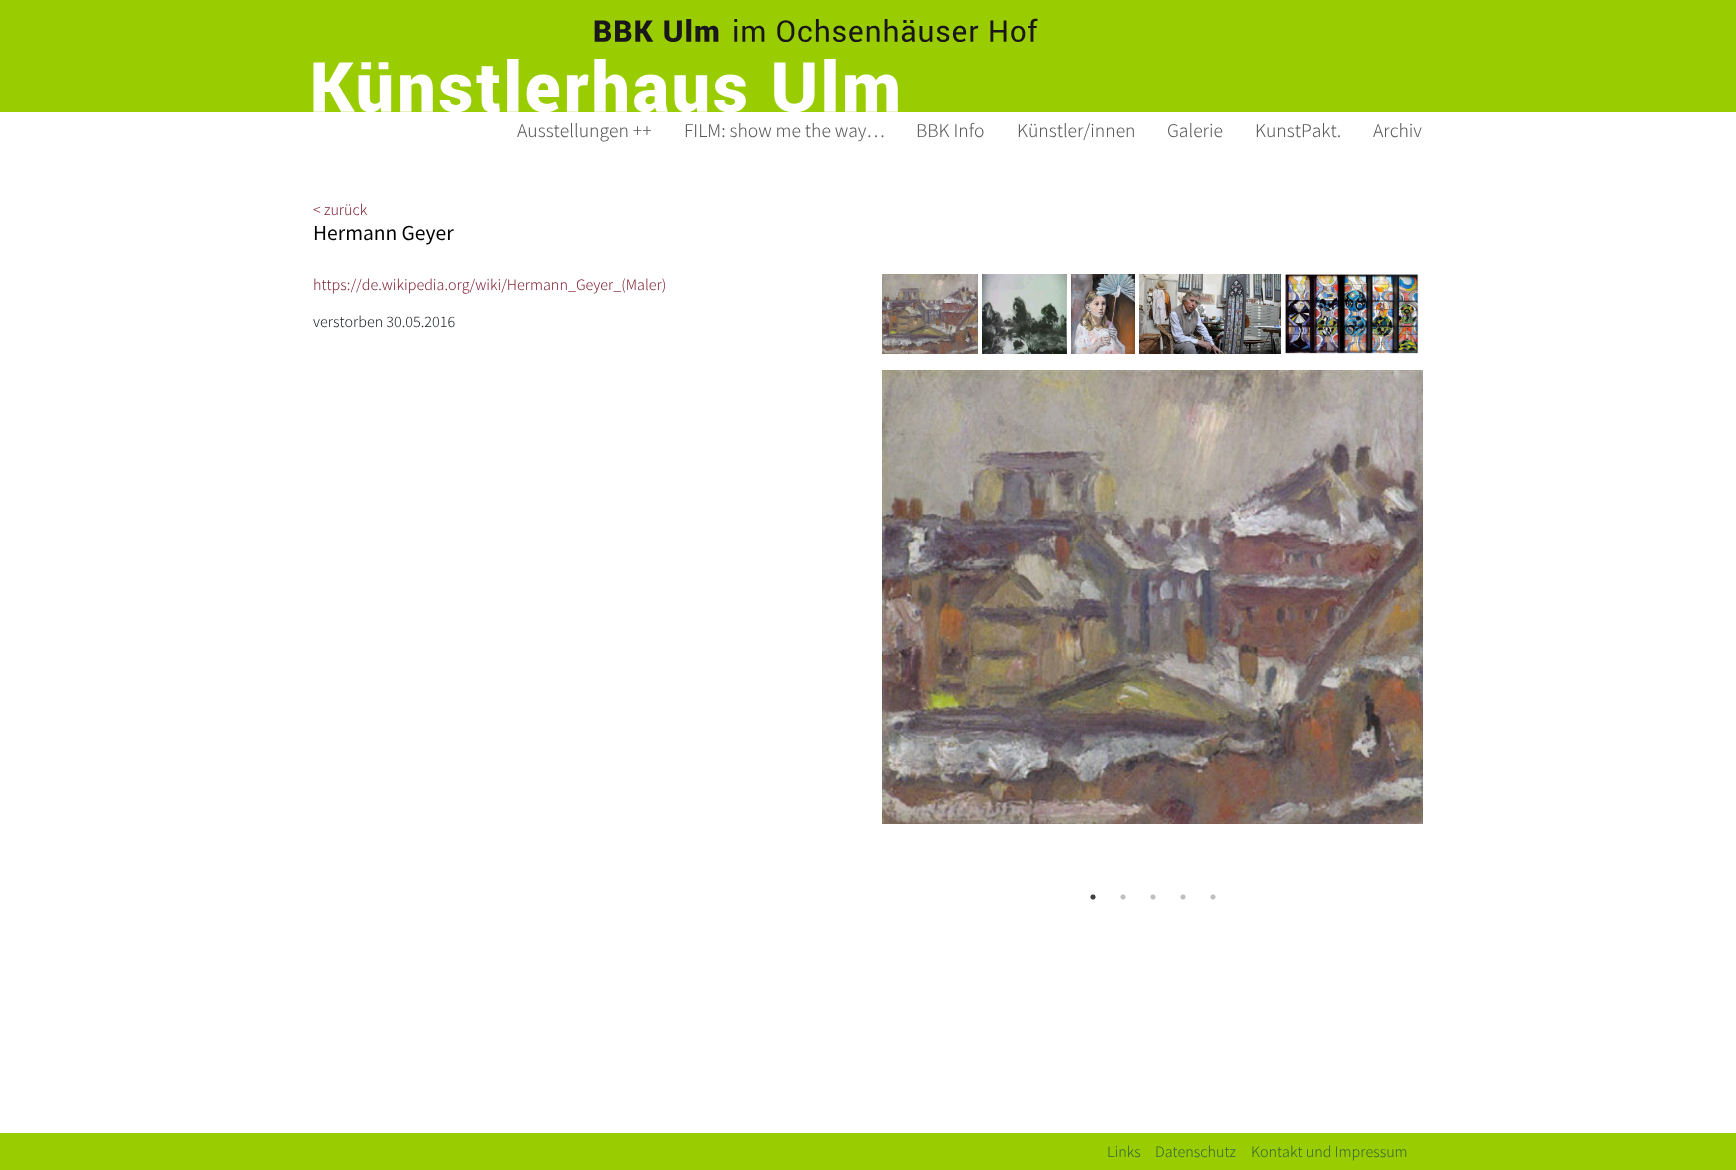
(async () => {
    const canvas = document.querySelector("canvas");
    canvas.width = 1736;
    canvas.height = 1170;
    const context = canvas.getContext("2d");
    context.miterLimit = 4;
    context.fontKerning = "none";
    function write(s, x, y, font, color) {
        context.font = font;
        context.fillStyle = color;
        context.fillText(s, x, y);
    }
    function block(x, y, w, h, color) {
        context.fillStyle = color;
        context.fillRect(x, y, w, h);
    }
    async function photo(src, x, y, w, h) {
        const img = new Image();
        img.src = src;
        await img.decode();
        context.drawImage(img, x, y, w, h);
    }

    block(0, 0, 1736, 1170, "rgb(255, 255, 255)");
    block(0, 0, 1736, 112, "rgb(153, 204, 1)");
    await photo("media/1.png", 313, 18, 725, 94);
    write("Ausstellungen ++", 517, 137, "300 17.6px Noto Sans HK", "rgb(88, 88, 88)");
    write("FILM: show me the way…", 684, 137, "300 17.6px Noto Sans HK", "rgb(88, 88, 88)");
    write("BBK Info", 916, 137, "300 17.6px Noto Sans HK", "rgb(88, 88, 88)");
    write("Künstler/innen", 1017, 137, "300 17.6px Noto Sans HK", "rgb(88, 88, 88)");
    write("Galerie", 1167, 137, "300 17.6px Noto Sans HK", "rgb(88, 88, 88)");
    write("KunstPakt.", 1255, 137, "300 17.6px Noto Sans HK", "rgb(88, 88, 88)");
    write("Archiv", 1373, 137, "300 17.6px Noto Sans HK", "rgb(88, 88, 88)");
    write("< zurück", 313, 215, "300 14.4px Noto Sans HK", "rgb(127, 35, 53)");
    write("Hermann Geyer", 313, 240, "19.25px Noto Sans HK", "rgb(0, 0, 0)");
    write("https://de.wikipedia.org/wiki/Hermann_Geyer_(Maler)", 313, 290, "300 14.4px Noto Sans HK", "rgb(127, 35, 53)");
    write("verstorben 30.05.2016", 313, 327, "300 14.4px Noto Sans HK", "rgb(33, 37, 41)");
    await photo("media/2.png", 882, 274, 96, 80);
    await photo("media/3.png", 982, 274, 85, 80);
    await photo("media/4.png", 1071, 274, 64, 80);
    await photo("media/5.png", 1139, 274, 142, 80);
    await photo("media/6.png", 1285, 274, 134, 80);
    await photo("media/7.png", 882, 370, 541, 454);
    await photo("media/8.png", 1090, 894, 6, 6);
    await photo("media/9.png", 1120, 894, 6, 6);
    await photo("media/9.png", 1150, 894, 6, 6);
    await photo("media/9.png", 1180, 894, 6, 6);
    await photo("media/9.png", 1210, 894, 6, 6);
    block(0, 1133, 1736, 37, "rgb(153, 204, 1)");
    write("Links", 1107, 1157, "300 14.4px Noto Sans HK", "rgb(52, 102, 51)");
    write("Datenschutz", 1155, 1157, "300 14.4px Noto Sans HK", "rgb(52, 102, 51)");
    write("Kontakt und Impressum", 1251, 1157, "300 14.4px Noto Sans HK", "rgb(52, 102, 51)");
})();
